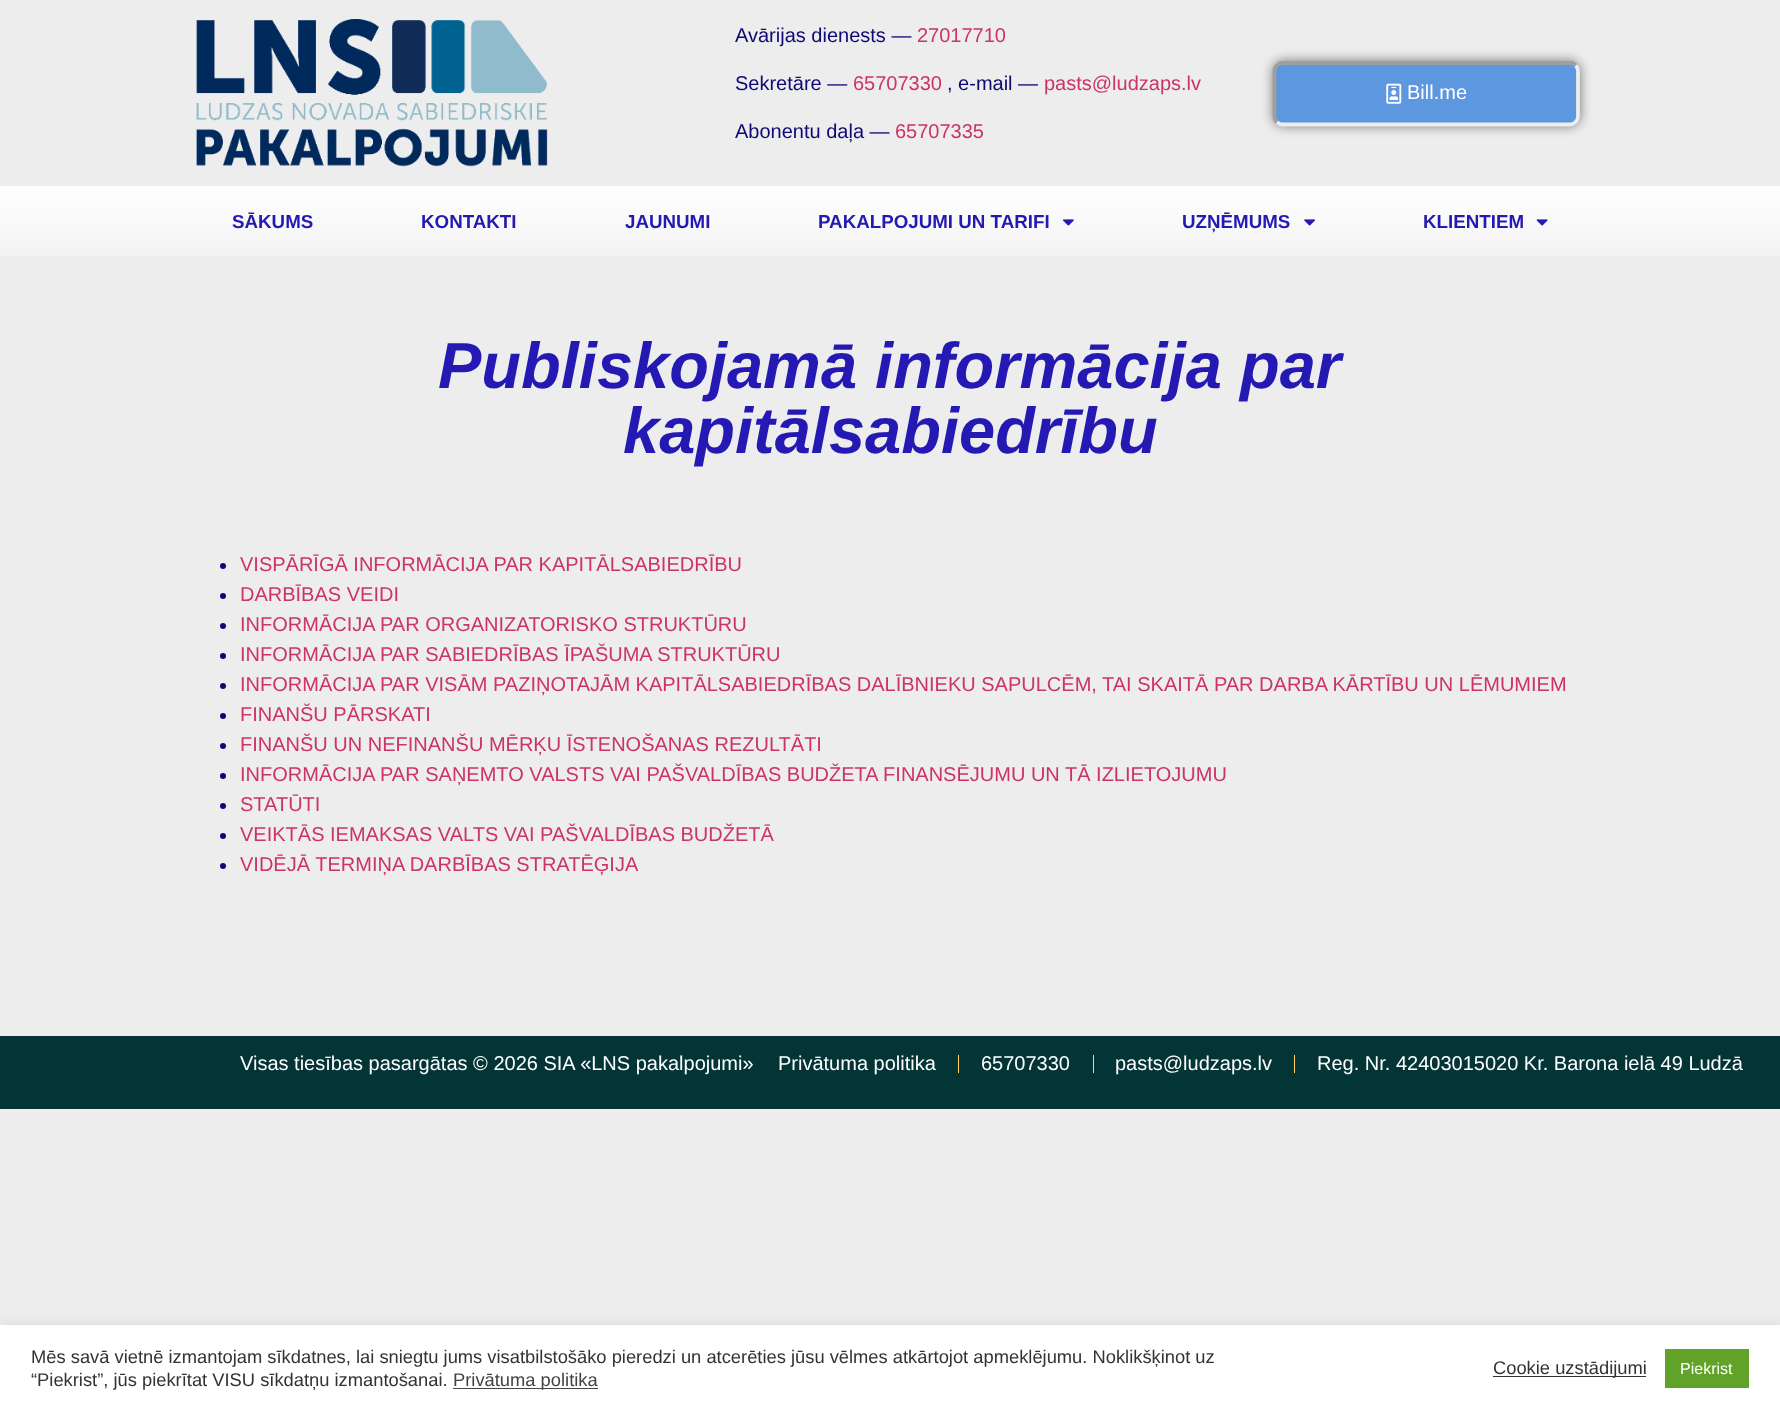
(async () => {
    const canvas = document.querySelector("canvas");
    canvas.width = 1780;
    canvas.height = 1411;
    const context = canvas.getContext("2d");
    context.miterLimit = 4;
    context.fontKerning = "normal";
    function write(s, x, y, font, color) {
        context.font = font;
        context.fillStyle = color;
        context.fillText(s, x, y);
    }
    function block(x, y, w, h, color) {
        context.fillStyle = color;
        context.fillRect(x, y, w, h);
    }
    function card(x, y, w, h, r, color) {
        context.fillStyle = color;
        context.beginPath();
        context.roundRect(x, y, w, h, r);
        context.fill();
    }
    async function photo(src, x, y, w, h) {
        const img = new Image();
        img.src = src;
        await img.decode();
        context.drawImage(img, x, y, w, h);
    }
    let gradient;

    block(0, 0, 1780, 1411, "rgb(237, 237, 237)");
    await photo("media/1.png", 196, 19, 352, 148);
    write("Avārijas dienests —", 735, 42, "20px Liberation Sans", "rgb(16, 8, 115)");
    write("27017710", 917, 42, "20px Liberation Sans", "rgb(204, 51, 102)");
    write("Sekretāre —", 735, 90, "20px Liberation Sans", "rgb(16, 8, 115)");
    write("65707330", 853, 90, "20px Liberation Sans", "rgb(204, 51, 102)");
    write(", e-mail —", 947, 90, "20px Liberation Sans", "rgb(16, 8, 115)");
    write("pasts@ludzaps.lv", 1044, 90, "20px Liberation Sans", "rgb(204, 51, 102)");
    write("Abonentu daļa —", 735, 138, "20px Liberation Sans", "rgb(16, 8, 115)");
    write("65707335", 895, 138, "20px Liberation Sans", "rgb(204, 51, 102)");
    context.fillStyle = "rgba(0, 0, 0, 0.5)";
    context.filter = "blur(6px)";
    context.beginPath();
    context.roundRect(1273, 61, 307, 65, 10);
    context.fill();
    context.filter = "none";
    card(1273, 61, 307, 65, 10, "rgb(93, 151, 224)");
    context.beginPath();
    context.moveTo(1575.5, 65.5);
    context.bezierCurveTo(1577.5, 67, 1578, 69, 1578, 71);
    context.lineTo(1578, 116);
    context.bezierCurveTo(1578, 118.5, 1577.5, 120.5, 1575.5, 122);
    context.bezierCurveTo(1574, 123.5, 1572, 124.5, 1570, 124.5);
    context.lineTo(1282.5, 124.5);
    context.bezierCurveTo(1280.5, 124.5, 1278.5, 123.5, 1277, 122);
    context.strokeStyle = "rgb(238, 238, 238)";
    context.lineWidth = 3.8;
    context.stroke();
    context.beginPath();
    context.moveTo(1277, 122);
    context.bezierCurveTo(1275, 120.5, 1274.5, 118.5, 1274.5, 116);
    context.lineTo(1274.5, 71);
    context.bezierCurveTo(1274.5, 69, 1275, 67, 1277, 65.5);
    context.bezierCurveTo(1278.5, 64, 1280.5, 63, 1282.5, 63);
    context.lineTo(1570, 63);
    context.bezierCurveTo(1572, 63, 1574, 64, 1575.5, 65.5);
    context.strokeStyle = "rgb(159, 159, 159)";
    context.stroke();
    await photo("media/2.png", 1386, 83, 16, 21);
    write("Bill.me", 1407, 99, "20px Liberation Sans", "rgb(255, 255, 255)");
    gradient = context.createLinearGradient(890, 186, 890, 256);
    gradient.addColorStop(0, "rgb(255, 255, 255)");
    gradient.addColorStop(1, "rgb(243, 243, 243)");
    context.fillStyle = gradient;
    context.fillRect(0, 186, 1780, 70);
    write("SĀKUMS", 232, 228, "bold 18.75px Liberation Sans", "rgb(36, 25, 178)");
    write("KONTAKTI", 421, 228, "bold 18.75px Liberation Sans", "rgb(36, 25, 178)");
    write("JAUNUMI", 625, 228, "bold 18.75px Liberation Sans", "rgb(36, 25, 178)");
    write("PAKALPOJUMI UN TARIFI", 818, 228, "bold 18.75px Liberation Sans", "rgb(36, 25, 178)");
    await photo("media/3.png", 1062, 219, 12, 7);
    write("UZŅĒMUMS", 1182, 228, "bold 18.75px Liberation Sans", "rgb(36, 25, 178)");
    await photo("media/4.png", 1304, 219, 11, 7);
    write("KLIENTIEM", 1423, 228, "bold 18.75px Liberation Sans", "rgb(36, 25, 178)");
    await photo("media/5.png", 1536, 219, 12, 7);
    write("Publiskojamā informācija par", 438, 388, "italic bold 65px Liberation Sans", "rgb(36, 25, 178)");
    write("kapitālsabiedrību", 623, 453, "italic bold 65px Liberation Sans", "rgb(36, 25, 178)");
    context.fillStyle = "rgb(16, 8, 115)";
    context.beginPath();
    context.arc(223, 566, 3, 0, Math.PI * 2);
    context.fill();
    write("VISPĀRĪGĀ INFORMĀCIJA PAR KAPITĀLSABIEDRĪBU", 240, 571, "20px Liberation Sans", "rgb(204, 51, 102)");
    context.fillStyle = "rgb(16, 8, 115)";
    context.beginPath();
    context.arc(223, 596, 3, 0, Math.PI * 2);
    context.fill();
    write("DARBĪBAS VEIDI", 240, 601, "20px Liberation Sans", "rgb(204, 51, 102)");
    context.fillStyle = "rgb(16, 8, 115)";
    context.beginPath();
    context.arc(223, 626, 3, 0, Math.PI * 2);
    context.fill();
    write("INFORMĀCIJA PAR ORGANIZATORISKO STRUKTŪRU", 240, 631, "20px Liberation Sans", "rgb(204, 51, 102)");
    context.fillStyle = "rgb(16, 8, 115)";
    context.beginPath();
    context.arc(223, 656, 3, 0, Math.PI * 2);
    context.fill();
    write("INFORMĀCIJA PAR SABIEDRĪBAS ĪPAŠUMA STRUKTŪRU", 240, 661, "20px Liberation Sans", "rgb(204, 51, 102)");
    context.fillStyle = "rgb(16, 8, 115)";
    context.beginPath();
    context.arc(223, 686, 3, 0, Math.PI * 2);
    context.fill();
    write("INFORMĀCIJA PAR VISĀM PAZIŅOTAJĀM KAPITĀLSABIEDRĪBAS DALĪBNIEKU SAPULCĒM, TAI SKAITĀ PAR DARBA KĀRTĪBU UN LĒMUMIEM", 240, 691, "20px Liberation Sans", "rgb(204, 51, 102)");
    context.fillStyle = "rgb(16, 8, 115)";
    context.beginPath();
    context.arc(223, 716, 3, 0, Math.PI * 2);
    context.fill();
    write("FINANŠU PĀRSKATI", 240, 721, "20px Liberation Sans", "rgb(204, 51, 102)");
    context.fillStyle = "rgb(16, 8, 115)";
    context.beginPath();
    context.arc(223, 746, 3, 0, Math.PI * 2);
    context.fill();
    write("FINANŠU UN NEFINANŠU MĒRĶU ĪSTENOŠANAS REZULTĀTI", 240, 751, "20px Liberation Sans", "rgb(204, 51, 102)");
    context.fillStyle = "rgb(16, 8, 115)";
    context.beginPath();
    context.arc(223, 776, 3, 0, Math.PI * 2);
    context.fill();
    write("INFORMĀCIJA PAR SAŅEMTO VALSTS VAI PAŠVALDĪBAS BUDŽETA FINANSĒJUMU UN TĀ IZLIETOJUMU", 240, 781, "20px Liberation Sans", "rgb(204, 51, 102)");
    context.fillStyle = "rgb(16, 8, 115)";
    context.beginPath();
    context.arc(223, 806, 3, 0, Math.PI * 2);
    context.fill();
    write("STATŪTI", 240, 811, "20px Liberation Sans", "rgb(204, 51, 102)");
    context.fillStyle = "rgb(16, 8, 115)";
    context.beginPath();
    context.arc(223, 836, 3, 0, Math.PI * 2);
    context.fill();
    write("VEIKTĀS IEMAKSAS VALTS VAI PAŠVALDĪBAS BUDŽETĀ", 240, 841, "20px Liberation Sans", "rgb(204, 51, 102)");
    context.fillStyle = "rgb(16, 8, 115)";
    context.beginPath();
    context.arc(223, 866, 3, 0, Math.PI * 2);
    context.fill();
    write("VIDĒJĀ TERMIŅA DARBĪBAS STRATĒĢIJA", 240, 871, "20px Liberation Sans", "rgb(204, 51, 102)");
    block(0, 1036, 1780, 73, "rgb(3, 53, 55)");
    write("Visas tiesības pasargātas © 2026 SIA «LNS pakalpojumi»", 240, 1070, "20px Liberation Sans", "rgb(255, 255, 255)");
    write("Privātuma politika", 778, 1070, "20px Liberation Sans", "rgb(255, 255, 255)");
    block(958, 1055, 1, 18, "rgb(255, 214, 100)");
    write("65707330", 981, 1070, "20px Liberation Sans", "rgb(255, 255, 255)");
    block(1093, 1055, 1, 18, "rgb(255, 214, 100)");
    write("pasts@ludzaps.lv", 1115, 1070, "20px Liberation Sans", "rgb(255, 255, 255)");
    block(1294, 1055, 1, 18, "rgb(255, 214, 100)");
    write("Reg. Nr. 42403015020 Kr. Barona ielā 49 Ludzā", 1317, 1070, "20px Liberation Sans", "rgb(255, 255, 255)");
    context.fillStyle = "rgba(172, 171, 171, 0.3)";
    context.filter = "blur(6px)";
    context.beginPath();
    context.rect(0, 1324, 1780, 86);
    context.fill();
    context.filter = "none";
    block(0, 1325, 1780, 86, "rgb(255, 255, 255)");
    write("Mēs savā vietnē izmantojam sīkdatnes, lai sniegtu jums visatbilstošāko pieredzi un atcerēties jūsu vēlmes atkārtojot apmeklējumu. Noklikšķinot uz", 31, 1363, "18.33px Liberation Sans", "rgb(51, 51, 51)");
    write("“Piekrist”, jūs piekrītat VISU sīkdatņu izmantošanai.", 31, 1386, "18.33px Liberation Sans", "rgb(51, 51, 51)");
    block(453, 1388, 145, 1, "rgb(68, 68, 68)");
    write("Privātuma politika", 453, 1386, "18.33px Liberation Sans", "rgb(68, 68, 68)");
    block(1493, 1376, 153, 1, "rgb(51, 51, 51)");
    write("Cookie uzstādijumi", 1493, 1374, "18.33px Liberation Sans", "rgb(51, 51, 51)");
    block(1665, 1349, 84, 39, "rgb(97, 162, 41)");
    write("Piekrist", 1680, 1374, "16px Liberation Sans", "rgb(255, 255, 255)");
})();
